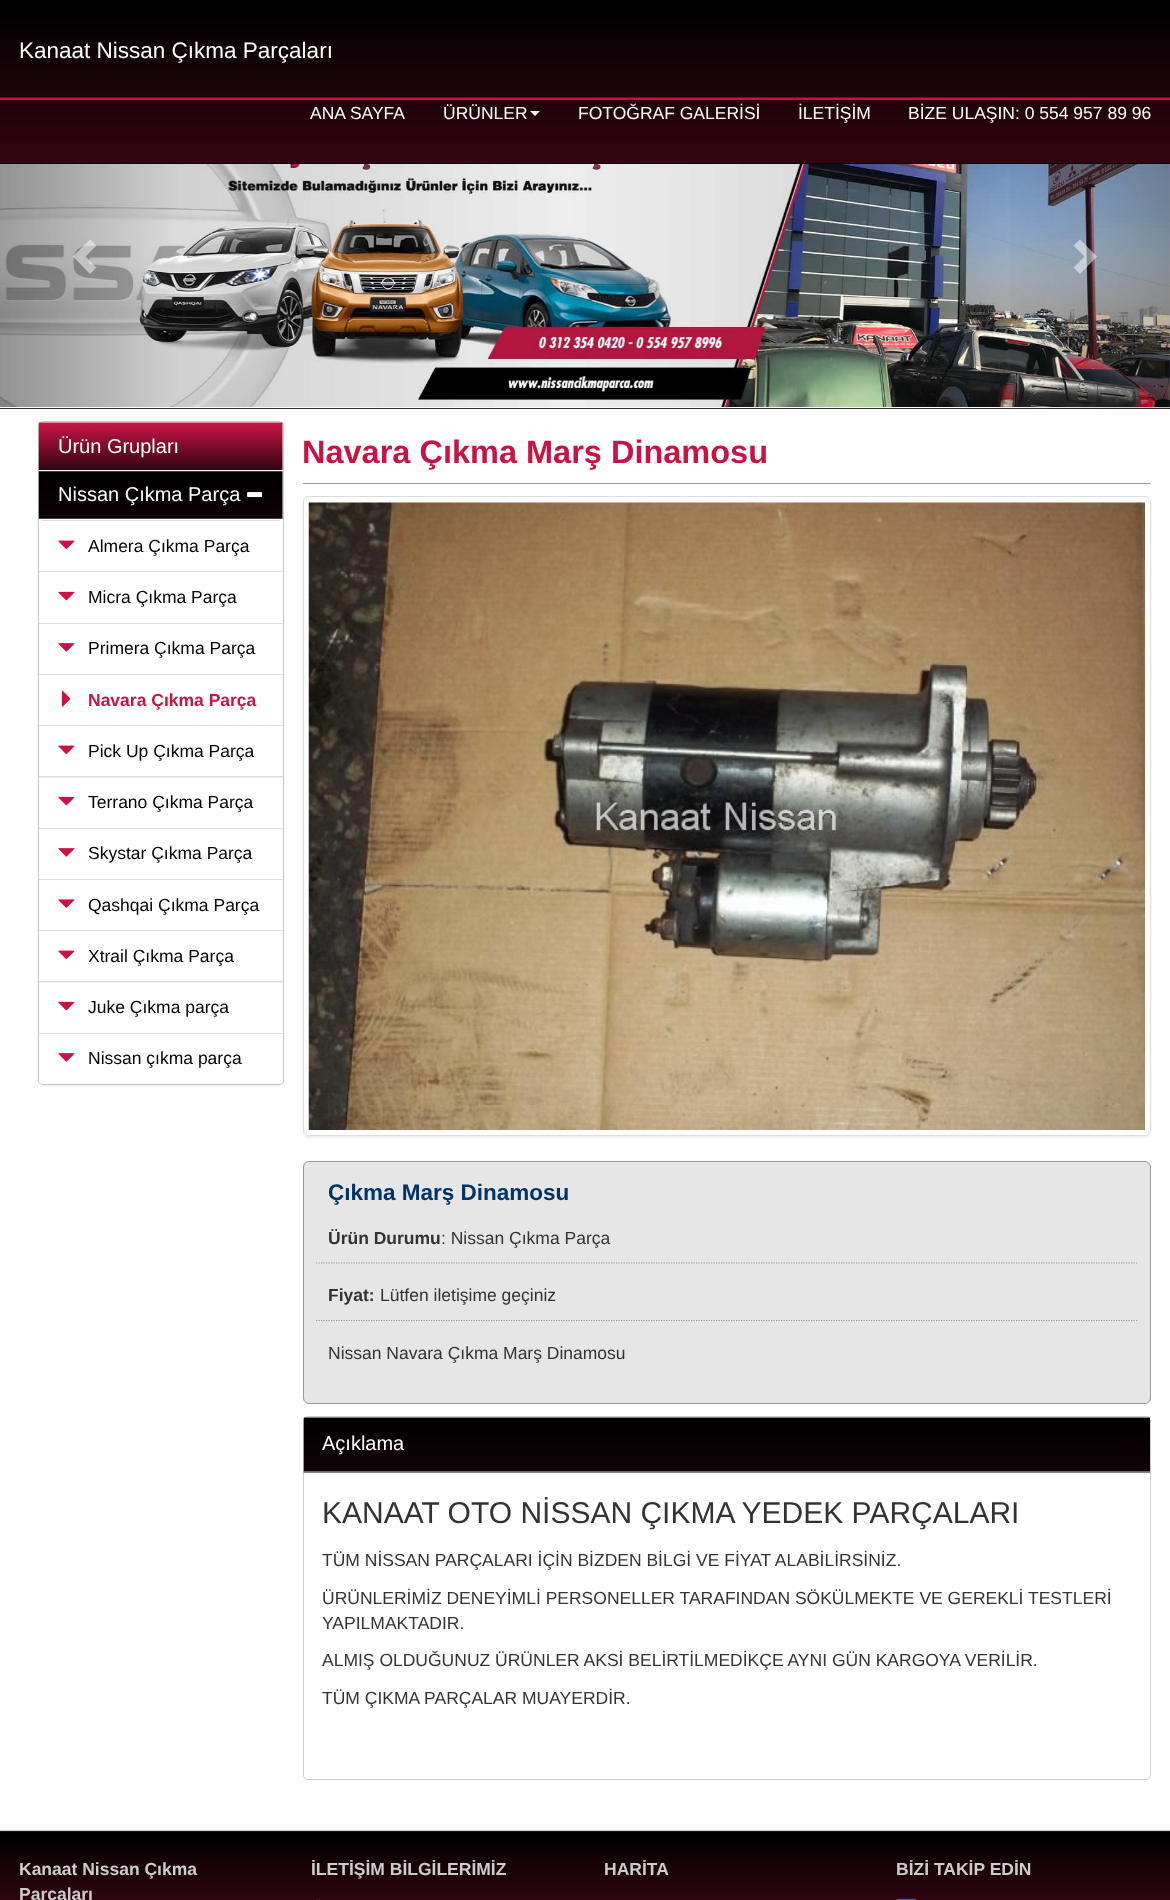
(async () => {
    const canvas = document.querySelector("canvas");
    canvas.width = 1170;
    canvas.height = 1900;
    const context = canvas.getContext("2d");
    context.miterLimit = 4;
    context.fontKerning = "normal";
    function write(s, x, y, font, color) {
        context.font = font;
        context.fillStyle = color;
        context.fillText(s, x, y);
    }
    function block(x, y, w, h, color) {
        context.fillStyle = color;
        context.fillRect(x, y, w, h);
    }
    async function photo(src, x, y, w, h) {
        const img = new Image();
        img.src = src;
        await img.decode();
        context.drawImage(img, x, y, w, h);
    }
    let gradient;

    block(0, 0, 1170, 1900, "rgb(255, 255, 255)");
    await photo("media/1.png", 0, 0, 1170, 163);
    block(0, 163, 1170, 1, "rgb(8, 8, 8)");
    write("Kanaat Nissan Çıkma Parçaları", 19, 58, "22.5px Liberation Sans", "rgb(255, 255, 255)");
    write("ANA SAYFA", 310, 119, "17.5px Liberation Sans", "rgb(255, 255, 255)");
    write("ÜRÜNLER", 443, 119, "17.5px Liberation Sans", "rgb(255, 255, 255)");
    context.beginPath();
    context.moveTo(530, 111);
    context.lineTo(540, 111);
    context.lineTo(535, 116);
    context.closePath();
    context.fill();
    write("FOTOĞRAF GALERİSİ", 578, 119, "17.5px Liberation Sans", "rgb(255, 255, 255)");
    write("İLETİŞİM", 798, 119, "17.5px Liberation Sans", "rgb(255, 255, 255)");
    write("BİZE ULAŞIN: 0 554 957 89 96", 908, 119, "17.5px Liberation Sans", "rgb(255, 255, 255)");
    block(0, 408, 1170, 1, "rgb(51, 51, 51)");
    await photo("media/2.png", 0, 164, 1170, 243);
    context.fillStyle = "rgba(255, 255, 255, 0.5)";
    context.beginPath();
    context.moveTo(96.5, 245.5);
    context.lineTo(85.5, 256.5);
    context.lineTo(96.5, 267.5);
    context.lineTo(90, 274);
    context.lineTo(73, 256.5);
    context.lineTo(90, 239.5);
    context.closePath();
    context.fill();
    gradient = context.createLinearGradient(995, 254, 1170, 254);
    gradient.addColorStop(0, "rgba(0, 0, 0, 0)");
    gradient.addColorStop(1, "rgba(0, 0, 0, 0.25)");
    context.fillStyle = gradient;
    context.fillRect(1010, 164, 160, 245);
    context.fillStyle = "rgba(255, 255, 255, 0.5)";
    context.beginPath();
    context.moveTo(1097, 256.5);
    context.lineTo(1080, 274);
    context.lineTo(1073.5, 267.5);
    context.lineTo(1084.5, 256.5);
    context.lineTo(1073.5, 245.5);
    context.lineTo(1080, 239.5);
    context.closePath();
    context.fill();
    context.fillStyle = "rgba(0, 0, 0, 0.05)";
    context.filter = "blur(1px)";
    context.beginPath();
    context.roundRect(38, 423, 246, 663, 5);
    context.fill();
    context.filter = "none";
    context.fillStyle = "rgb(255, 255, 255)";
    context.beginPath();
    context.roundRect(38.5, 421.5, 245, 663, 4.5);
    context.fill();
    context.strokeStyle = "rgb(204, 204, 204)";
    context.stroke();
    await photo("media/3.png", 38, 422, 245, 48);
    write("Ürün Grupları", 58, 453, "20px Liberation Sans", "rgb(255, 255, 255)");
    await photo("media/4.png", 38, 471, 245, 48);
    write("Nissan Çıkma Parça", 58, 501, "20px Liberation Sans", "rgb(255, 255, 255)");
    await photo("media/5.png", 247, 492, 16, 6);
    context.fillStyle = "rgba(0, 0, 0, 0.07)";
    context.filter = "blur(1px)";
    context.beginPath();
    context.roundRect(39, 521, 244, 564, 5);
    context.fill();
    context.filter = "none";
    block(41, 520, 239, 1, "rgb(221, 221, 221)");
    block(39, 521, 244, 102, "rgb(255, 255, 255)");
    block(39, 571, 244, 1, "rgb(221, 221, 221)");
    await photo("media/6.png", 58, 540, 17, 9);
    write("Almera Çıkma Parça", 88, 552, "17.5px Liberation Sans", "rgb(0, 0, 0)");
    block(39, 623, 244, 1, "rgb(221, 221, 221)");
    await photo("media/7.png", 58, 591, 17, 10);
    write("Micra Çıkma Parça", 88, 603, "17.5px Liberation Sans", "rgb(0, 0, 0)");
    block(39, 624, 244, 50, "rgb(255, 255, 255)");
    block(39, 674, 244, 1, "rgb(221, 221, 221)");
    await photo("media/8.png", 58, 643, 17, 9);
    write("Primera Çıkma Parça", 88, 654, "17.5px Liberation Sans", "rgb(0, 0, 0)");
    block(39, 675, 244, 50, "rgb(255, 255, 255)");
    block(39, 725, 244, 1, "rgb(221, 221, 221)");
    await photo("media/9.png", 61, 690, 10, 17);
    write("Navara Çıkma Parça", 88, 706, "bold 17.5px Liberation Sans", "rgb(200, 20, 68)");
    block(39, 726, 244, 50, "rgb(255, 255, 255)");
    block(39, 776, 244, 1, "rgb(221, 221, 221)");
    await photo("media/6.png", 58, 745, 17, 9);
    write("Pick Up Çıkma Parça", 88, 757, "17.5px Liberation Sans", "rgb(0, 0, 0)");
    block(39, 778, 244, 50, "rgb(255, 255, 255)");
    block(39, 828, 244, 1, "rgb(221, 221, 221)");
    await photo("media/7.png", 58, 796, 17, 10);
    write("Terrano Çıkma Parça", 88, 808, "17.5px Liberation Sans", "rgb(0, 0, 0)");
    block(39, 829, 244, 50, "rgb(255, 255, 255)");
    block(39, 879, 244, 1, "rgb(221, 221, 221)");
    await photo("media/8.png", 58, 848, 17, 9);
    write("Skystar Çıkma Parça", 88, 859, "17.5px Liberation Sans", "rgb(0, 0, 0)");
    block(39, 880, 244, 50, "rgb(255, 255, 255)");
    block(39, 930, 244, 1, "rgb(221, 221, 221)");
    await photo("media/10.png", 58, 899, 17, 9);
    write("Qashqai Çıkma Parça", 88, 911, "17.5px Liberation Sans", "rgb(0, 0, 0)");
    block(39, 931, 244, 50, "rgb(255, 255, 255)");
    block(39, 981, 244, 1, "rgb(221, 221, 221)");
    await photo("media/6.png", 58, 950, 17, 9);
    write("Xtrail Çıkma Parça", 88, 962, "17.5px Liberation Sans", "rgb(0, 0, 0)");
    block(39, 983, 244, 50, "rgb(255, 255, 255)");
    await photo("media/7.png", 58, 1001, 17, 10);
    write("Juke Çıkma parça", 88, 1013, "17.5px Liberation Sans", "rgb(0, 0, 0)");
    context.fillStyle = "rgb(255, 255, 255)";
    context.beginPath();
    context.roundRect(39, 1033, 244, 51, [0, 0, 4, 4]);
    context.fill();
    block(39, 1033, 244, 1, "rgb(221, 221, 221)");
    await photo("media/8.png", 58, 1053, 17, 9);
    write("Nissan çıkma parça", 88, 1064, "17.5px Liberation Sans", "rgb(0, 0, 0)");
    block(303, 483, 848, 1, "rgb(153, 153, 153)");
    write("Navara Çıkma Marş Dinamosu", 302, 463, "bold 32.5px Liberation Sans", "rgb(200, 20, 68)");
    context.save();
    context.beginPath();
    context.moveTo(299, 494);
    context.lineTo(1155, 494);
    context.lineTo(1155, 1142);
    context.lineTo(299, 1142);
    context.closePath();
    context.moveTo(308, 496);
    context.lineTo(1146, 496);
    context.bezierCurveTo(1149, 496, 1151, 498, 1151, 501);
    context.lineTo(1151, 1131);
    context.bezierCurveTo(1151, 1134, 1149, 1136, 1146, 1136);
    context.lineTo(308, 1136);
    context.bezierCurveTo(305, 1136, 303, 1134, 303, 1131);
    context.lineTo(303, 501);
    context.bezierCurveTo(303, 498, 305, 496, 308, 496);
    context.closePath();
    context.clip("evenodd");
    context.fillStyle = "rgba(0, 0, 0, 0.07)";
    context.filter = "blur(1px)";
    context.beginPath();
    context.roundRect(303, 498, 848, 640, 5);
    context.fill();
    context.filter = "none";
    context.restore();
    context.beginPath();
    context.roundRect(303.5, 496.5, 847, 639, 4.5);
    context.strokeStyle = "rgb(221, 221, 221)";
    context.stroke();
    await photo("media/11.png", 308, 502, 837, 628);
    context.fillStyle = "rgb(230, 230, 230)";
    context.beginPath();
    context.roundRect(303.5, 1161.5, 847, 242, 5.5);
    context.fill();
    context.strokeStyle = "rgb(153, 153, 153)";
    context.stroke();
    write("Çıkma Marş Dinamosu", 328, 1200, "bold 22.5px Liberation Sans", "rgb(0, 51, 102)");
    context.beginPath();
    context.moveTo(316, 1263);
    context.lineTo(1137.5, 1263);
    context.lineWidth = 1.2;
    context.setLineDash([1.25, 1.25]);
    context.stroke();
    write("Ürün Durumu", 328, 1244, "bold 17.5px Liberation Sans", "rgb(51, 51, 51)");
    write(": Nissan Çıkma Parça", 441, 1244, "17.5px Liberation Sans", "rgb(51, 51, 51)");
    context.beginPath();
    context.moveTo(316, 1320.5);
    context.lineTo(1137.5, 1320.5);
    context.stroke();
    write("Fiyat:", 328, 1301, "bold 17.5px Liberation Sans", "rgb(51, 51, 51)");
    write("Lütfen iletişime geçiniz", 380, 1301, "17.5px Liberation Sans", "rgb(51, 51, 51)");
    write("Nissan Navara Çıkma Marş Dinamosu", 328, 1359, "17.5px Liberation Sans", "rgb(51, 51, 51)");
    context.beginPath();
    context.roundRect(303.5, 1416.5, 847, 363, 4.5);
    context.strokeStyle = "rgb(204, 204, 204)";
    context.lineWidth = 1;
    context.setLineDash([]);
    context.stroke();
    await photo("media/12.png", 303, 1417, 847, 56);
    block(304, 1471, 846, 1, "rgb(51, 122, 183)");
    write("Açıklama", 322, 1450, "20px Liberation Sans", "rgb(255, 255, 255)");
    write("KANAAT OTO NİSSAN ÇIKMA YEDEK PARÇALARI", 322, 1523, "30px Liberation Sans", "rgb(51, 51, 51)");
    write("TÜM NİSSAN PARÇALARI İÇİN BİZDEN BİLGİ VE FİYAT ALABİLİRSİNİZ.", 322, 1566, "17.5px Liberation Sans", "rgb(51, 51, 51)");
    write("ÜRÜNLERİMİZ DENEYİMLİ PERSONELLER TARAFINDAN SÖKÜLMEKTE VE GEREKLİ TESTLERİ", 322, 1604, "17.5px Liberation Sans", "rgb(51, 51, 51)");
    write("YAPILMAKTADIR.", 322, 1629, "17.5px Liberation Sans", "rgb(51, 51, 51)");
    write("ALMIŞ OLDUĞUNUZ ÜRÜNLER AKSİ BELİRTİLMEDİKÇE AYNI GÜN KARGOYA VERİLİR.", 322, 1666, "17.5px Liberation Sans", "rgb(51, 51, 51)");
    write("TÜM ÇIKMA PARÇALAR MUAYERDİR.", 322, 1704, "17.5px Liberation Sans", "rgb(51, 51, 51)");
    await photo("media/13.png", 0, 1831, 1170, 69);
    block(0, 1830, 1170, 1, "rgb(204, 204, 204)");
    write("Kanaat Nissan Çıkma", 19, 1875, "bold 17.5px Liberation Sans", "rgb(204, 204, 204)");
    write("Parçaları", 19, 1900, "bold 17.5px Liberation Sans", "rgb(204, 204, 204)");
    write("İLETİŞİM BİLGİLERİMİZ", 311, 1875, "bold 17.5px Liberation Sans", "rgb(204, 204, 204)");
    block(319, 1899, 1, 1, "rgb(75, 45, 53)");
    write("HARİTA", 604, 1875, "bold 17.5px Liberation Sans", "rgb(204, 204, 204)");
    write("BİZİ TAKİP EDİN", 896, 1875, "bold 17.5px Liberation Sans", "rgb(204, 204, 204)");
    await photo("media/14.png", 896, 1898, 21, 2);
})();
